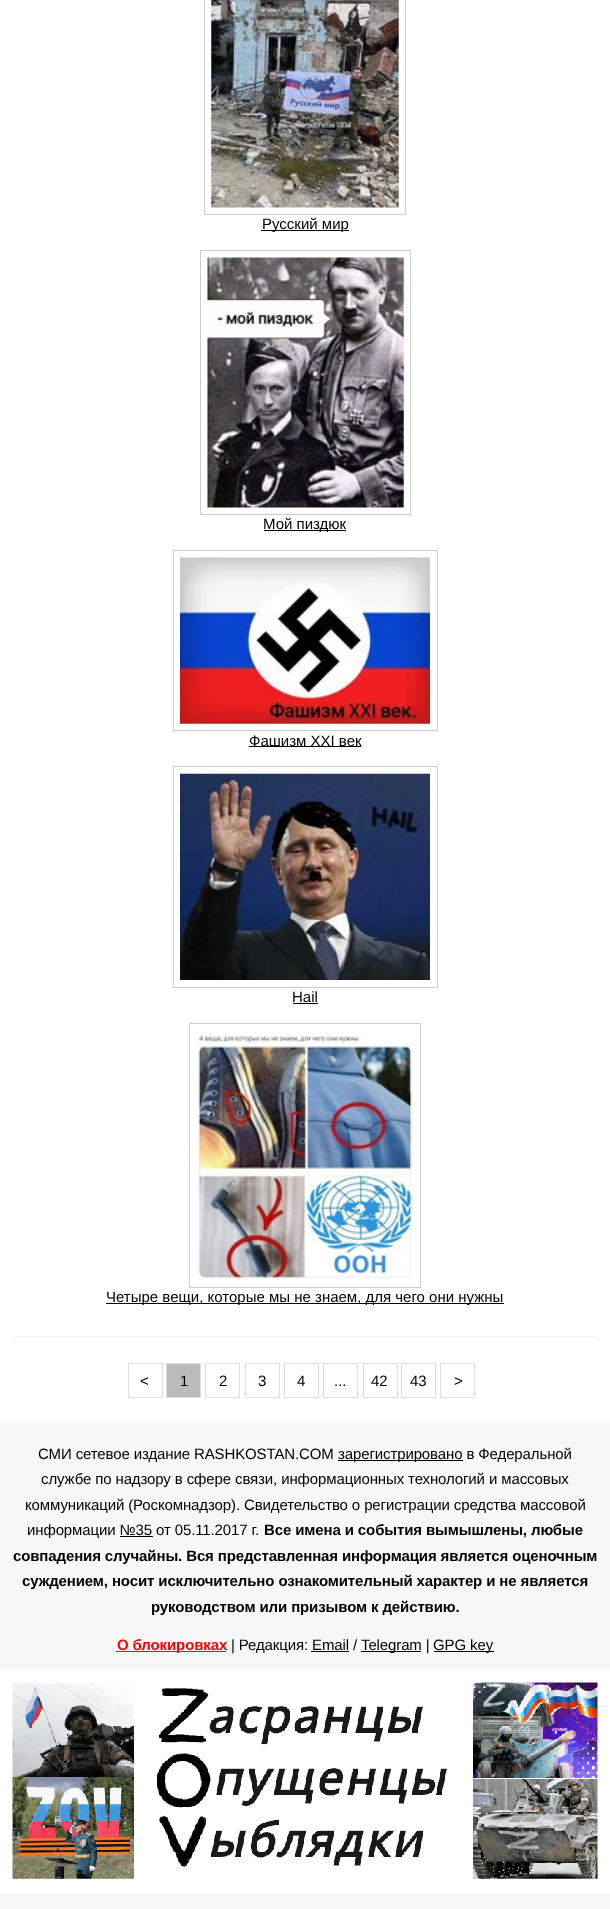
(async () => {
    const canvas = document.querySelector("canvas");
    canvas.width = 610;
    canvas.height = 1909;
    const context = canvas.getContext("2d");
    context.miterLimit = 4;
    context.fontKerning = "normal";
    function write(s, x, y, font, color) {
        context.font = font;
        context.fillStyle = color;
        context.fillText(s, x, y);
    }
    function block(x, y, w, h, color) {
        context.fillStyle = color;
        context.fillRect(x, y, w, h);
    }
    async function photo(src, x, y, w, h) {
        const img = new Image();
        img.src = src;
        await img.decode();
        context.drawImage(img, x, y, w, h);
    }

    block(0, 0, 610, 1909, "rgb(255, 255, 255)");
    context.strokeStyle = "rgb(204, 204, 204)";
    context.strokeRect(204.5, -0.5, 201, 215);
    await photo("media/1.png", 211, 0, 188, 208);
    block(261, 230, 88, 1, "rgb(0, 0, 0)");
    write("Русский мир", 262, 229, "15px Liberation Sans", "rgb(0, 0, 0)");
    context.strokeRect(200.5, 250.5, 210, 264);
    await photo("media/2.png", 207, 257, 197, 251);
    block(264, 530, 82, 1, "rgb(0, 0, 0)");
    write("Мой пиздюк", 263, 529, "15px Liberation Sans", "rgb(0, 0, 0)");
    context.strokeRect(173.5, 550.5, 264, 180);
    await photo("media/3.png", 180, 557, 250, 167);
    block(249, 746, 112, 1, "rgb(0, 0, 0)");
    write("Фашизм XXI век", 249, 746, "15px Liberation Sans", "rgb(0, 0, 0)");
    context.strokeRect(173.5, 766.5, 264, 221);
    await photo("media/4.png", 180, 773, 250, 207);
    write("Hail", 292, 1002, "15px Liberation Sans", "rgb(0, 0, 0)");
    block(293, 1003, 25, 1, "rgb(0, 0, 0)");
    context.strokeRect(189.5, 1023.5, 231, 264);
    await photo("media/5.png", 196, 1030, 218, 250);
    block(106, 1303, 398, 1, "rgb(0, 0, 0)");
    write("Четыре вещи, которые мы не знаем, для чего они нужны", 106, 1302, "15px Liberation Sans", "rgb(0, 0, 0)");
    block(13, 1336, 585, 1, "rgb(242, 242, 242)");
    context.strokeStyle = "rgb(221, 221, 221)";
    context.strokeRect(128.5, 1363.5, 34, 34);
    write("<", 140, 1386, "15px Liberation Sans", "rgb(0, 0, 0)");
    context.fillStyle = "rgb(187, 187, 187)";
    context.beginPath();
    context.rect(166.5, 1363.5, 34, 34);
    context.fill();
    context.stroke();
    write("1", 180, 1386, "15px Liberation Sans", "rgb(0, 0, 0)");
    context.strokeRect(205.5, 1363.5, 34, 34);
    write("2", 219, 1386, "15px Liberation Sans", "rgb(0, 0, 0)");
    context.strokeRect(245.5, 1363.5, 34, 34);
    write("3", 258, 1386, "15px Liberation Sans", "rgb(0, 0, 0)");
    context.strokeRect(284.5, 1363.5, 34, 34);
    write("4", 297, 1386, "15px Liberation Sans", "rgb(0, 0, 0)");
    context.strokeRect(323.5, 1363.5, 34, 34);
    write("...", 334, 1386, "15px Liberation Sans", "rgb(0, 0, 0)");
    context.strokeRect(363.5, 1363.5, 34, 34);
    write("42", 371, 1386, "15px Liberation Sans", "rgb(0, 0, 0)");
    context.strokeRect(401.5, 1363.5, 34, 34);
    write("43", 410, 1386, "15px Liberation Sans", "rgb(0, 0, 0)");
    context.strokeRect(440.5, 1363.5, 34, 34);
    write(">", 454, 1386, "15px Liberation Sans", "rgb(0, 0, 0)");
    block(0, 1423, 610, 486, "rgb(247, 247, 247)");
    context.letterSpacing = "-0.12px";
    write("СМИ сетевое издание RASHKOSTAN.COM", 38, 1459, "15px Liberation Sans", "rgb(0, 0, 0)");
    block(338, 1460, 125, 1, "rgb(0, 0, 0)");
    write("зарегистрировано в Федеральной", 338, 1459, "15px Liberation Sans", "rgb(0, 0, 0)");
    write("службе по надзору в сфере связи, информационных технологий и массовых", 41, 1484, "15px Liberation Sans", "rgb(0, 0, 0)");
    write("коммуникаций (Роскомнадзор). Свидетельство о регистрации средства массовой", 25, 1510, "15px Liberation Sans", "rgb(0, 0, 0)");
    write("информации №35 от 05.11.2017 г.", 27, 1535, "15px Liberation Sans", "rgb(0, 0, 0)");
    write("Все имена и события вымышлены, любые", 264, 1535, "bold 15px Liberation Sans", "rgb(0, 0, 0)");
    block(120, 1536, 33, 1, "rgb(0, 0, 0)");
    write("совпадения случайны. Вся представленная информация является оценочным", 13, 1561, "bold 15px Liberation Sans", "rgb(0, 0, 0)");
    write("суждением, носит исключительно ознакомительный характер и не является", 22, 1586, "bold 15px Liberation Sans", "rgb(0, 0, 0)");
    write("руководством или призывом к действию.", 151, 1612, "bold 15px Liberation Sans", "rgb(0, 0, 0)");
    block(116, 1651, 110, 1, "rgb(255, 0, 0)");
    write("О блокировках", 117, 1650, "bold 15px Liberation Sans", "rgb(255, 0, 0)");
    write("| Редакция: Email /", 231, 1650, "15px Liberation Sans", "rgb(0, 0, 0)");
    block(361, 1651, 60, 1, "rgb(0, 0, 0)");
    write("Telegram |", 361, 1650, "15px Liberation Sans", "rgb(0, 0, 0)");
    block(434, 1651, 60, 1, "rgb(0, 0, 0)");
    write("GPG key", 433, 1650, "15px Liberation Sans", "rgb(0, 0, 0)");
    block(311, 1651, 38, 1, "rgb(0, 0, 0)");
    block(0, 1670, 610, 224, "rgb(255, 255, 255)");
    await photo("media/6.png", 12, 1682, 586, 197);
})();
